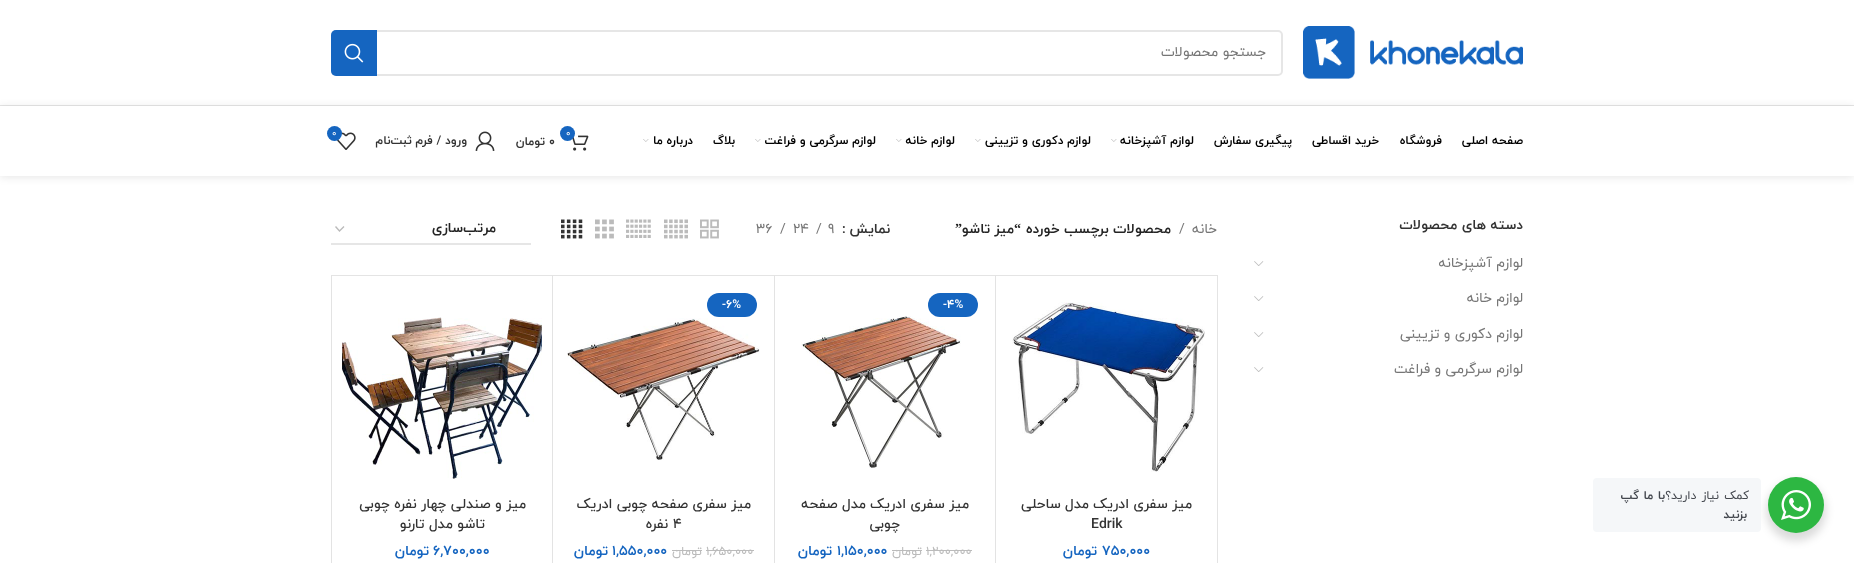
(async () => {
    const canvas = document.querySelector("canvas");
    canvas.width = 1854;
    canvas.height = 563;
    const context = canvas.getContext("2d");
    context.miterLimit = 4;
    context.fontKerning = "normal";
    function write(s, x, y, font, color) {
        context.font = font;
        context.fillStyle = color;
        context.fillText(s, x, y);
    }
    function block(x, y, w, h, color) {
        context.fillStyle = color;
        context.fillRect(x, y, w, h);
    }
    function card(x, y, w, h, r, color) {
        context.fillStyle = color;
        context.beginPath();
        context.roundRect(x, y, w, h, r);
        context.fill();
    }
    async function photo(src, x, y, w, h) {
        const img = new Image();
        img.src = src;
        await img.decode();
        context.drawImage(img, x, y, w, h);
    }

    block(0, 0, 1854, 563, "rgb(255, 255, 255)");
    context.fillStyle = "rgba(0, 0, 0, 0.14)";
    context.filter = "blur(4px)";
    context.beginPath();
    context.roundRect(1766, 481, 60, 60, 30);
    context.fill();
    context.filter = "none";
    context.fillStyle = "rgb(45, 183, 66)";
    context.beginPath();
    context.arc(1796, 505, 28, 0, Math.PI * 2);
    context.fill();
    await photo("media/1.png", 1781, 490, 30, 30);
    card(1593, 478, 168, 54, 4, "rgb(245, 247, 249)");
    context.letterSpacing = "-0.4px";
    context.wordSpacing = "2px";
    context.direction = "rtl";
    write("کمک نیاز دارید؟", 1749, 499, "12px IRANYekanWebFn", "rgb(67, 71, 78)");
    context.wordSpacing = "1px";
    write("با ما گپ", 1665, 499, "bold 12px IRANYekanWebFn", "rgb(67, 71, 78)");
    context.wordSpacing = "0px";
    write("بزنید", 1747, 518, "bold 12px IRANYekanWebFn", "rgb(67, 71, 78)");
    block(0, 105, 1854, 1, "rgb(230, 230, 230)");
    await photo("media/2.png", 1303, 26, 220, 53);
    context.beginPath();
    context.roundRect(332, 31, 950, 44, 4);
    context.strokeStyle = "rgb(230, 230, 230)";
    context.lineWidth = 2;
    context.stroke();
    context.letterSpacing = "0px";
    write("جستجو محصولات", 1266, 56, "14px IRANYekanWebFn", "rgb(118, 118, 118)");
    context.fillStyle = "rgb(21, 101, 192)";
    context.beginPath();
    context.roundRect(331, 30, 46, 46, [5, 0, 0, 5]);
    context.fill();
    await photo("media/3.png", 344, 43, 20, 20);
    context.fillStyle = "rgba(0, 0, 0, 0.1)";
    context.filter = "blur(4px)";
    context.beginPath();
    context.rect(0, 107, 1854, 70);
    context.fill();
    context.filter = "none";
    block(0, 106, 1854, 70, "rgb(255, 255, 255)");
    write("صفحه اصلی", 1523, 144, "bold 12px IRANYekanWebFn", "rgb(0, 0, 0)");
    write("فروشگاه", 1442, 144, "bold 12px IRANYekanWebFn", "rgb(0, 0, 0)");
    write("خرید اقساطی", 1379, 144, "bold 12px IRANYekanWebFn", "rgb(0, 0, 0)");
    write("پیگیری سفارش", 1292, 144, "bold 12px IRANYekanWebFn", "rgb(0, 0, 0)");
    write("لوازم آشپزخانه", 1194, 144, "bold 12px IRANYekanWebFn", "rgb(0, 0, 0)");
    await photo("media/4.png", 1111, 139, 6, 3);
    write("لوازم دکوری و تزیینی", 1091, 144, "bold 12px IRANYekanWebFn", "rgb(0, 0, 0)");
    await photo("media/4.png", 975, 139, 6, 3);
    write("لوازم خانه", 955, 144, "bold 12px IRANYekanWebFn", "rgb(0, 0, 0)");
    await photo("media/4.png", 896, 139, 6, 3);
    write("لوازم سرگرمی و فراغت", 876, 144, "bold 12px IRANYekanWebFn", "rgb(0, 0, 0)");
    await photo("media/4.png", 755, 139, 6, 3);
    write("بلاگ", 735, 144, "bold 12px IRANYekanWebFn", "rgb(0, 0, 0)");
    write("درباره ما", 693, 144, "bold 12px IRANYekanWebFn", "rgb(0, 0, 0)");
    await photo("media/4.png", 643, 139, 6, 3);
    await photo("media/5.png", 572, 135, 17, 16);
    context.fillStyle = "rgb(21, 101, 192)";
    context.beginPath();
    context.arc(567.5, 133.5, 7.5, 0, Math.PI * 2);
    context.fill();
    context.direction = "ltr";
    write("0", 566, 136, "9px IRANYekanWebFn", "rgb(255, 255, 255)");
    write("0", 549, 145, "bold 12px IRANYekanWebFn", "rgb(51, 51, 51)");
    context.direction = "rtl";
    write("تومان", 545, 145, "bold 12px IRANYekanWebFn", "rgb(51, 51, 51)");
    await photo("media/6.png", 475, 131, 20, 20);
    write("ورود / فرم ثبت‌نام", 467, 144, "bold 12px IRANYekanWebFn", "rgb(51, 51, 51)");
    await photo("media/7.png", 336, 132, 20, 18);
    context.fillStyle = "rgb(21, 101, 192)";
    context.beginPath();
    context.arc(334.5, 133.5, 7.5, 0, Math.PI * 2);
    context.fill();
    context.direction = "ltr";
    write("0", 332, 136, "9px IRANYekanWebFn", "rgb(255, 255, 255)");
    context.direction = "rtl";
    write("دسته های محصولات", 1523, 229, "bold 14px IRANYekanWebFn", "rgb(51, 51, 51)");
    write("لوازم آشپزخانه", 1523, 267, "14px IRANYekanWebFn", "rgb(118, 118, 118)");
    await photo("media/8.png", 1254, 261, 10, 5);
    write("لوازم خانه", 1523, 302, "14px IRANYekanWebFn", "rgb(118, 118, 118)");
    await photo("media/8.png", 1254, 296, 10, 5);
    write("لوازم دکوری و تزیینی", 1523, 338, "14px IRANYekanWebFn", "rgb(118, 118, 118)");
    await photo("media/8.png", 1254, 332, 10, 5);
    write("لوازم سرگرمی و فراغت", 1523, 373, "14px IRANYekanWebFn", "rgb(118, 118, 118)");
    await photo("media/8.png", 1254, 367, 10, 5);
    write("خانه", 1217, 233, "14px IRANYekanWebFn", "rgb(118, 118, 118)");
    context.direction = "ltr";
    write("/", 1179, 233, "14px IRANYekanWebFn", "rgb(118, 118, 118)");
    context.direction = "rtl";
    write("محصولات برچسب خورده", 1171, 233, "bold 14px IRANYekanWebFn", "rgb(36, 36, 36)");
    write("“", 1021, 233, "bold 14px Liberation Serif", "rgb(36, 36, 36)");
    write("میز تاشو", 1014, 233, "bold 14px IRANYekanWebFn", "rgb(36, 36, 36)");
    write("”", 962, 233, "bold 14px Liberation Serif", "rgb(36, 36, 36)");
    write("نمایش", 890, 233, "bold 14px IRANYekanWebFn", "rgb(51, 51, 51)");
    context.direction = "ltr";
    write(":", 842, 233, "bold 14px IRANYekanWebFn", "rgb(51, 51, 51)");
    write("9", 828, 233, "14px IRANYekanWebFn", "rgb(118, 118, 118)");
    write("/", 816, 233, "14px IRANYekanWebFn", "rgb(118, 118, 118)");
    write("24", 793, 233, "14px IRANYekanWebFn", "rgb(118, 118, 118)");
    write("/", 780, 233, "14px IRANYekanWebFn", "rgb(118, 118, 118)");
    write("36", 756, 233, "14px IRANYekanWebFn", "rgb(118, 118, 118)");
    await photo("media/9.png", 700, 219, 19, 20);
    await photo("media/10.png", 664, 219, 24, 20);
    await photo("media/11.png", 626, 219, 25, 19);
    await photo("media/12.png", 595, 219, 19, 20);
    await photo("media/13.png", 561, 219, 22, 20);
    context.beginPath();
    context.moveTo(335.5, 226.5);
    context.lineTo(339.5, 231);
    context.lineTo(344, 226.5);
    context.strokeStyle = "rgb(187, 187, 187)";
    context.lineWidth = 1.4;
    context.stroke();
    block(331, 243, 200, 2, "rgb(230, 230, 230)");
    context.direction = "rtl";
    write("مرتب‌سازی", 496, 232, "bold 14px IRANYekanWebFn", "rgb(36, 36, 36)");
    block(1217, 275, 1, 288, "rgb(228, 228, 228)");
    context.beginPath();
    context.moveTo(995, 275);
    context.lineTo(1217, 275);
    context.lineTo(1217, 276);
    context.lineTo(996, 276);
    context.closePath();
    context.fill();
    context.fillStyle = "rgba(0, 0, 0, 0.11)";
    context.beginPath();
    context.moveTo(995, 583);
    context.lineTo(995, 275);
    context.lineTo(996, 276);
    context.lineTo(996, 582);
    context.closePath();
    context.fill();
    await photo("media/14.png", 1012, 302, 193, 170);
    write("میز سفری ادریک مدل ساحلی", 1192, 508, "500 14px IRANYekanWebFn", "rgb(51, 51, 51)");
    context.direction = "ltr";
    write("Edrik", 1091, 528, "500 14px IRANYekanWebFn", "rgb(51, 51, 51)");
    write("750,000", 1102, 555, "bold 14px IRANYekanWebFn", "rgb(21, 101, 192)");
    context.direction = "rtl";
    write("تومان", 1097, 555, "bold 14px IRANYekanWebFn", "rgb(21, 101, 192)");
    context.fillStyle = "rgb(228, 228, 228)";
    context.beginPath();
    context.moveTo(774, 275);
    context.lineTo(995, 275);
    context.lineTo(995, 276);
    context.lineTo(775, 276);
    context.closePath();
    context.fill();
    context.fillStyle = "rgba(0, 0, 0, 0.11)";
    context.beginPath();
    context.moveTo(774, 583);
    context.lineTo(774, 275);
    context.lineTo(775, 276);
    context.lineTo(775, 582);
    context.closePath();
    context.fill();
    await photo("media/15.png", 801, 316, 160, 152);
    card(928, 293, 50, 24, 12, "rgb(21, 101, 192)");
    context.direction = "ltr";
    write("-4%", 943, 308, "bold 12px IRANYekanWebFn", "rgb(255, 255, 255)");
    context.direction = "rtl";
    write("میز سفری ادریک مدل صفحه", 969, 508, "500 14px IRANYekanWebFn", "rgb(51, 51, 51)");
    write("چوبی", 900, 528, "500 14px IRANYekanWebFn", "rgb(51, 51, 51)");
    context.direction = "ltr";
    write("1,200,000", 926, 555, "12.5px IRANYekanWebFn", "rgb(187, 187, 187)");
    block(926, 550, 46, 1, "rgb(187, 187, 187)");
    context.direction = "rtl";
    write("تومان", 922, 555, "12.5px IRANYekanWebFn", "rgb(187, 187, 187)");
    block(892, 550, 30, 1, "rgb(187, 187, 187)");
    context.direction = "ltr";
    write("1,150,000", 837, 555, "bold 14px IRANYekanWebFn", "rgb(21, 101, 192)");
    context.direction = "rtl";
    write("تومان", 832, 555, "bold 14px IRANYekanWebFn", "rgb(21, 101, 192)");
    context.fillStyle = "rgb(228, 228, 228)";
    context.beginPath();
    context.moveTo(552, 275);
    context.lineTo(774, 275);
    context.lineTo(774, 276);
    context.lineTo(553, 276);
    context.closePath();
    context.fill();
    context.fillStyle = "rgba(0, 0, 0, 0.11)";
    context.beginPath();
    context.moveTo(552, 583);
    context.lineTo(552, 275);
    context.lineTo(553, 276);
    context.lineTo(553, 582);
    context.closePath();
    context.fill();
    card(707, 293, 50, 24, 12, "rgb(21, 101, 192)");
    context.direction = "ltr";
    write("-6%", 722, 308, "bold 12px IRANYekanWebFn", "rgb(255, 255, 255)");
    await photo("media/16.png", 567, 318, 193, 142);
    context.direction = "rtl";
    write("میز سفری صفحه چوبی ادریک", 751, 508, "500 14px IRANYekanWebFn", "rgb(51, 51, 51)");
    context.direction = "ltr";
    write("۴", 673, 528, "500 14px IRANYekanWebFn", "rgb(51, 51, 51)");
    context.direction = "rtl";
    write("نفره", 668, 528, "500 14px IRANYekanWebFn", "rgb(51, 51, 51)");
    context.direction = "ltr";
    write("1,650,000", 706, 555, "12.5px IRANYekanWebFn", "rgb(187, 187, 187)");
    block(706, 550, 48, 1, "rgb(187, 187, 187)");
    context.direction = "rtl";
    write("تومان", 702, 555, "12.5px IRANYekanWebFn", "rgb(187, 187, 187)");
    block(672, 550, 30, 1, "rgb(187, 187, 187)");
    context.direction = "ltr";
    write("1,550,000", 612, 555, "bold 14px IRANYekanWebFn", "rgb(21, 101, 192)");
    context.direction = "rtl";
    write("تومان", 608, 555, "bold 14px IRANYekanWebFn", "rgb(21, 101, 192)");
    context.fillStyle = "rgb(228, 228, 228)";
    context.beginPath();
    context.moveTo(331, 275);
    context.lineTo(552, 275);
    context.lineTo(552, 276);
    context.lineTo(332, 276);
    context.closePath();
    context.fill();
    context.fillStyle = "rgba(0, 0, 0, 0.11)";
    context.beginPath();
    context.moveTo(331, 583);
    context.lineTo(331, 275);
    context.lineTo(332, 276);
    context.lineTo(332, 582);
    context.closePath();
    context.fill();
    await photo("media/17.png", 342, 317, 200, 162);
    write("میز و صندلی چهار نفره چوبی", 526, 508, "500 14px IRANYekanWebFn", "rgb(51, 51, 51)");
    write("تاشو مدل تارنو", 485, 528, "500 14px IRANYekanWebFn", "rgb(51, 51, 51)");
    context.direction = "ltr";
    write("6,700,000", 433, 555, "bold 14px IRANYekanWebFn", "rgb(21, 101, 192)");
    context.direction = "rtl";
    write("تومان", 429, 555, "bold 14px IRANYekanWebFn", "rgb(21, 101, 192)");
})();
